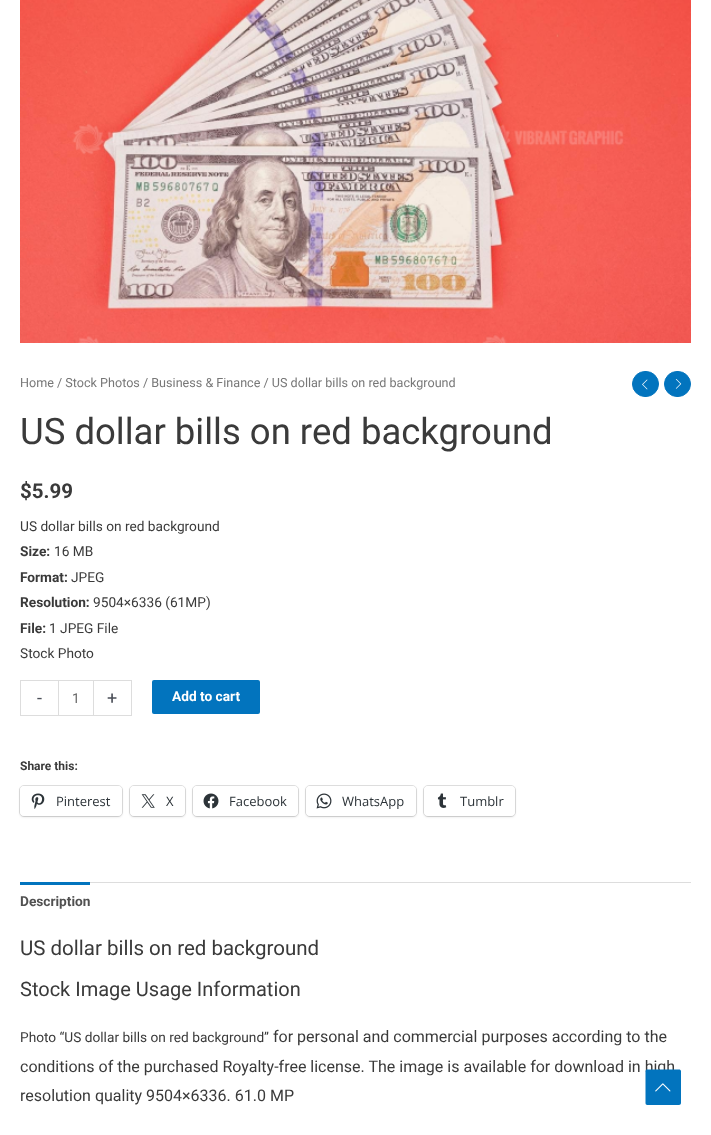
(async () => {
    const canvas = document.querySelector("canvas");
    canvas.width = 711;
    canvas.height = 1135;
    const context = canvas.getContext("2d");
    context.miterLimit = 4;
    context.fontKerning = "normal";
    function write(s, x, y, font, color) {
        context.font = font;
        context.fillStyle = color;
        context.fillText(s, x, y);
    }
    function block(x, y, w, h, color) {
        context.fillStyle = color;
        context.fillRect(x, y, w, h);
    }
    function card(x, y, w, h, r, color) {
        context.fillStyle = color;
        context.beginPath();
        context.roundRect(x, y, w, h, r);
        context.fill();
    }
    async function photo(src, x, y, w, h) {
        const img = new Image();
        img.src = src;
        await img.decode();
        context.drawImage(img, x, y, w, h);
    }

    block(0, 0, 711, 1135, "rgb(255, 255, 255)");
    await photo("media/1.png", 20, 0, 671, 343);
    write("Home / Stock Photos / Business & Finance / US dollar bills on red background", 20, 387, "12.6px Roboto", "rgb(119, 119, 119)");
    context.fillStyle = "rgb(2, 116, 190)";
    context.beginPath();
    context.roundRect(632.5, 371.5, 26, 25, 12.5);
    context.fill();
    context.strokeStyle = "rgb(2, 116, 190)";
    context.stroke();
    await photo("media/2.png", 642, 379, 6, 11);
    context.beginPath();
    context.roundRect(664.5, 371.5, 26, 25, 12.5);
    context.fill();
    context.stroke();
    await photo("media/3.png", 675, 379, 7, 10);
    write("US dollar bills on red background", 20, 444, "36.5px Roboto", "rgb(58, 58, 58)");
    write("$5.99", 20, 498, "bold 20.5px Roboto", "rgb(58, 58, 58)");
    write("US dollar bills on red background", 20, 531, "13.7px Roboto", "rgb(58, 58, 58)");
    write("Size:", 20, 556, "bold 13.7px Roboto", "rgb(58, 58, 58)");
    write("16 MB", 54, 556, "13.7px Roboto", "rgb(58, 58, 58)");
    write("Format:", 20, 582, "bold 13.7px Roboto", "rgb(58, 58, 58)");
    write("JPEG", 71, 582, "13.7px Roboto", "rgb(58, 58, 58)");
    write("Resolution:", 20, 607, "bold 13.7px Roboto", "rgb(58, 58, 58)");
    write("9504×6336 (61MP)", 93, 607, "13.7px Roboto", "rgb(58, 58, 58)");
    write("File:", 20, 633, "bold 13.7px Roboto", "rgb(58, 58, 58)");
    write("1 JPEG File", 49, 633, "13.7px Roboto", "rgb(58, 58, 58)");
    write("Stock Photo", 20, 658, "13.7px Roboto", "rgb(58, 58, 58)");
    block(20, 680, 38, 1, "rgb(221, 221, 221)");
    block(20, 715, 38, 1, "rgb(221, 221, 221)");
    block(20, 680, 1, 36, "rgb(221, 221, 221)");
    write("-", 37, 704, "18px Roboto", "rgb(75, 79, 88)");
    context.strokeStyle = "rgb(221, 221, 221)";
    context.strokeRect(58.5, 680.5, 35, 35);
    write("1", 72, 703, "13.7px Roboto", "rgb(102, 102, 102)");
    block(94, 680, 38, 1, "rgb(221, 221, 221)");
    block(131, 680, 1, 36, "rgb(221, 221, 221)");
    block(94, 715, 38, 1, "rgb(221, 221, 221)");
    write("+", 107, 704, "18px Roboto", "rgb(75, 79, 88)");
    card(152, 680, 108, 34, 2, "rgb(2, 116, 190)");
    write("Add to cart", 172, 701, "bold 13.7px Roboto", "rgb(255, 255, 255)");
    write("Share this:", 20, 770, "bold 12px Roboto", "rgb(58, 58, 58)");
    context.beginPath();
    context.roundRect(19.5, 785.5, 103, 31, 4.5);
    context.strokeStyle = "rgb(224, 224, 224)";
    context.stroke();
    context.fillStyle = "rgba(0, 0, 0, 0.12)";
    context.filter = "blur(1px)";
    context.beginPath();
    context.roundRect(20, 787, 102, 30, 4);
    context.fill();
    context.filter = "none";
    card(20, 786, 102, 30, 4, "rgb(255, 255, 255)");
    await photo("media/4.png", 31, 793, 14, 16);
    write("Pinterest", 56, 806, "13px Open Sans", "rgb(44, 51, 56)");
    context.beginPath();
    context.roundRect(129.5, 785.5, 56, 31, 4.5);
    context.stroke();
    context.fillStyle = "rgba(0, 0, 0, 0.12)";
    context.filter = "blur(1px)";
    context.beginPath();
    context.roundRect(130, 787, 55, 30, 4);
    context.fill();
    context.filter = "none";
    card(130, 786, 55, 30, 4, "rgb(255, 255, 255)");
    await photo("media/5.png", 141, 794, 14, 14);
    write("X", 166, 806, "13px Open Sans", "rgb(44, 51, 56)");
    context.beginPath();
    context.roundRect(192.5, 785.5, 106, 31, 4.5);
    context.stroke();
    context.fillStyle = "rgba(0, 0, 0, 0.12)";
    context.filter = "blur(1px)";
    context.beginPath();
    context.roundRect(193, 787, 105, 30, 4);
    context.fill();
    context.filter = "none";
    card(193, 786, 105, 30, 4, "rgb(255, 255, 255)");
    await photo("media/6.png", 203, 793, 16, 16);
    write("Facebook", 229, 806, "13px Open Sans", "rgb(44, 51, 56)");
    context.beginPath();
    context.roundRect(305.5, 785.5, 111, 31, 4.5);
    context.stroke();
    context.fillStyle = "rgba(0, 0, 0, 0.12)";
    context.filter = "blur(1px)";
    context.beginPath();
    context.roundRect(306, 787, 110, 30, 4);
    context.fill();
    context.filter = "none";
    card(306, 786, 110, 30, 4, "rgb(255, 255, 255)");
    await photo("media/7.png", 316, 793, 16, 16);
    write("WhatsApp", 342, 806, "13px Open Sans", "rgb(44, 51, 56)");
    context.beginPath();
    context.roundRect(423.5, 785.5, 92, 31, 4.5);
    context.stroke();
    context.fillStyle = "rgba(0, 0, 0, 0.12)";
    context.filter = "blur(1px)";
    context.beginPath();
    context.roundRect(424, 787, 91, 30, 4);
    context.fill();
    context.filter = "none";
    card(424, 786, 91, 30, 4, "rgb(255, 255, 255)");
    await photo("media/8.png", 437, 793, 10, 15);
    write("Tumblr", 460, 806, "13px Open Sans", "rgb(44, 51, 56)");
    block(90, 882, 601, 1, "rgb(221, 221, 221)");
    block(20, 882, 70, 3, "rgb(2, 116, 190)");
    write("Description", 20, 906, "bold 13.7px Roboto", "rgb(81, 81, 81)");
    write("US dollar bills on red background", 20, 955, "20.5px Roboto", "rgb(58, 58, 58)");
    write("Stock Image Usage Information", 20, 996, "20px Roboto", "rgb(58, 58, 58)");
    write("Photo “US dollar bills on red background”", 20, 1042, "13.7px Roboto", "rgb(58, 58, 58)");
    write("for personal and commercial purposes according to the", 273, 1042, "16px Roboto", "rgb(58, 58, 58)");
    write("conditions of the purchased Royalty-free license. The image is available for download in high", 20, 1072, "16px Roboto", "rgb(58, 58, 58)");
    write("resolution quality 9504×6336. 61.0 MP", 20, 1101, "16px Roboto", "rgb(58, 58, 58)");
    context.fillStyle = "rgb(2, 116, 190)";
    context.beginPath();
    context.moveTo(679, 1105);
    context.lineTo(647.5, 1105);
    context.bezierCurveTo(646, 1105, 645.5, 1104, 645.5, 1103);
    context.lineTo(645.5, 1071.5);
    context.bezierCurveTo(645.5, 1070, 646, 1069.5, 647.5, 1069.5);
    context.lineTo(679, 1069.5);
    context.bezierCurveTo(680, 1069.5, 681, 1070, 681, 1071.5);
    context.lineTo(681, 1103);
    context.bezierCurveTo(681, 1104, 680, 1105, 679, 1105);
    context.closePath();
    context.fill();
    await photo("media/9.png", 655, 1083, 16, 9);
})();
